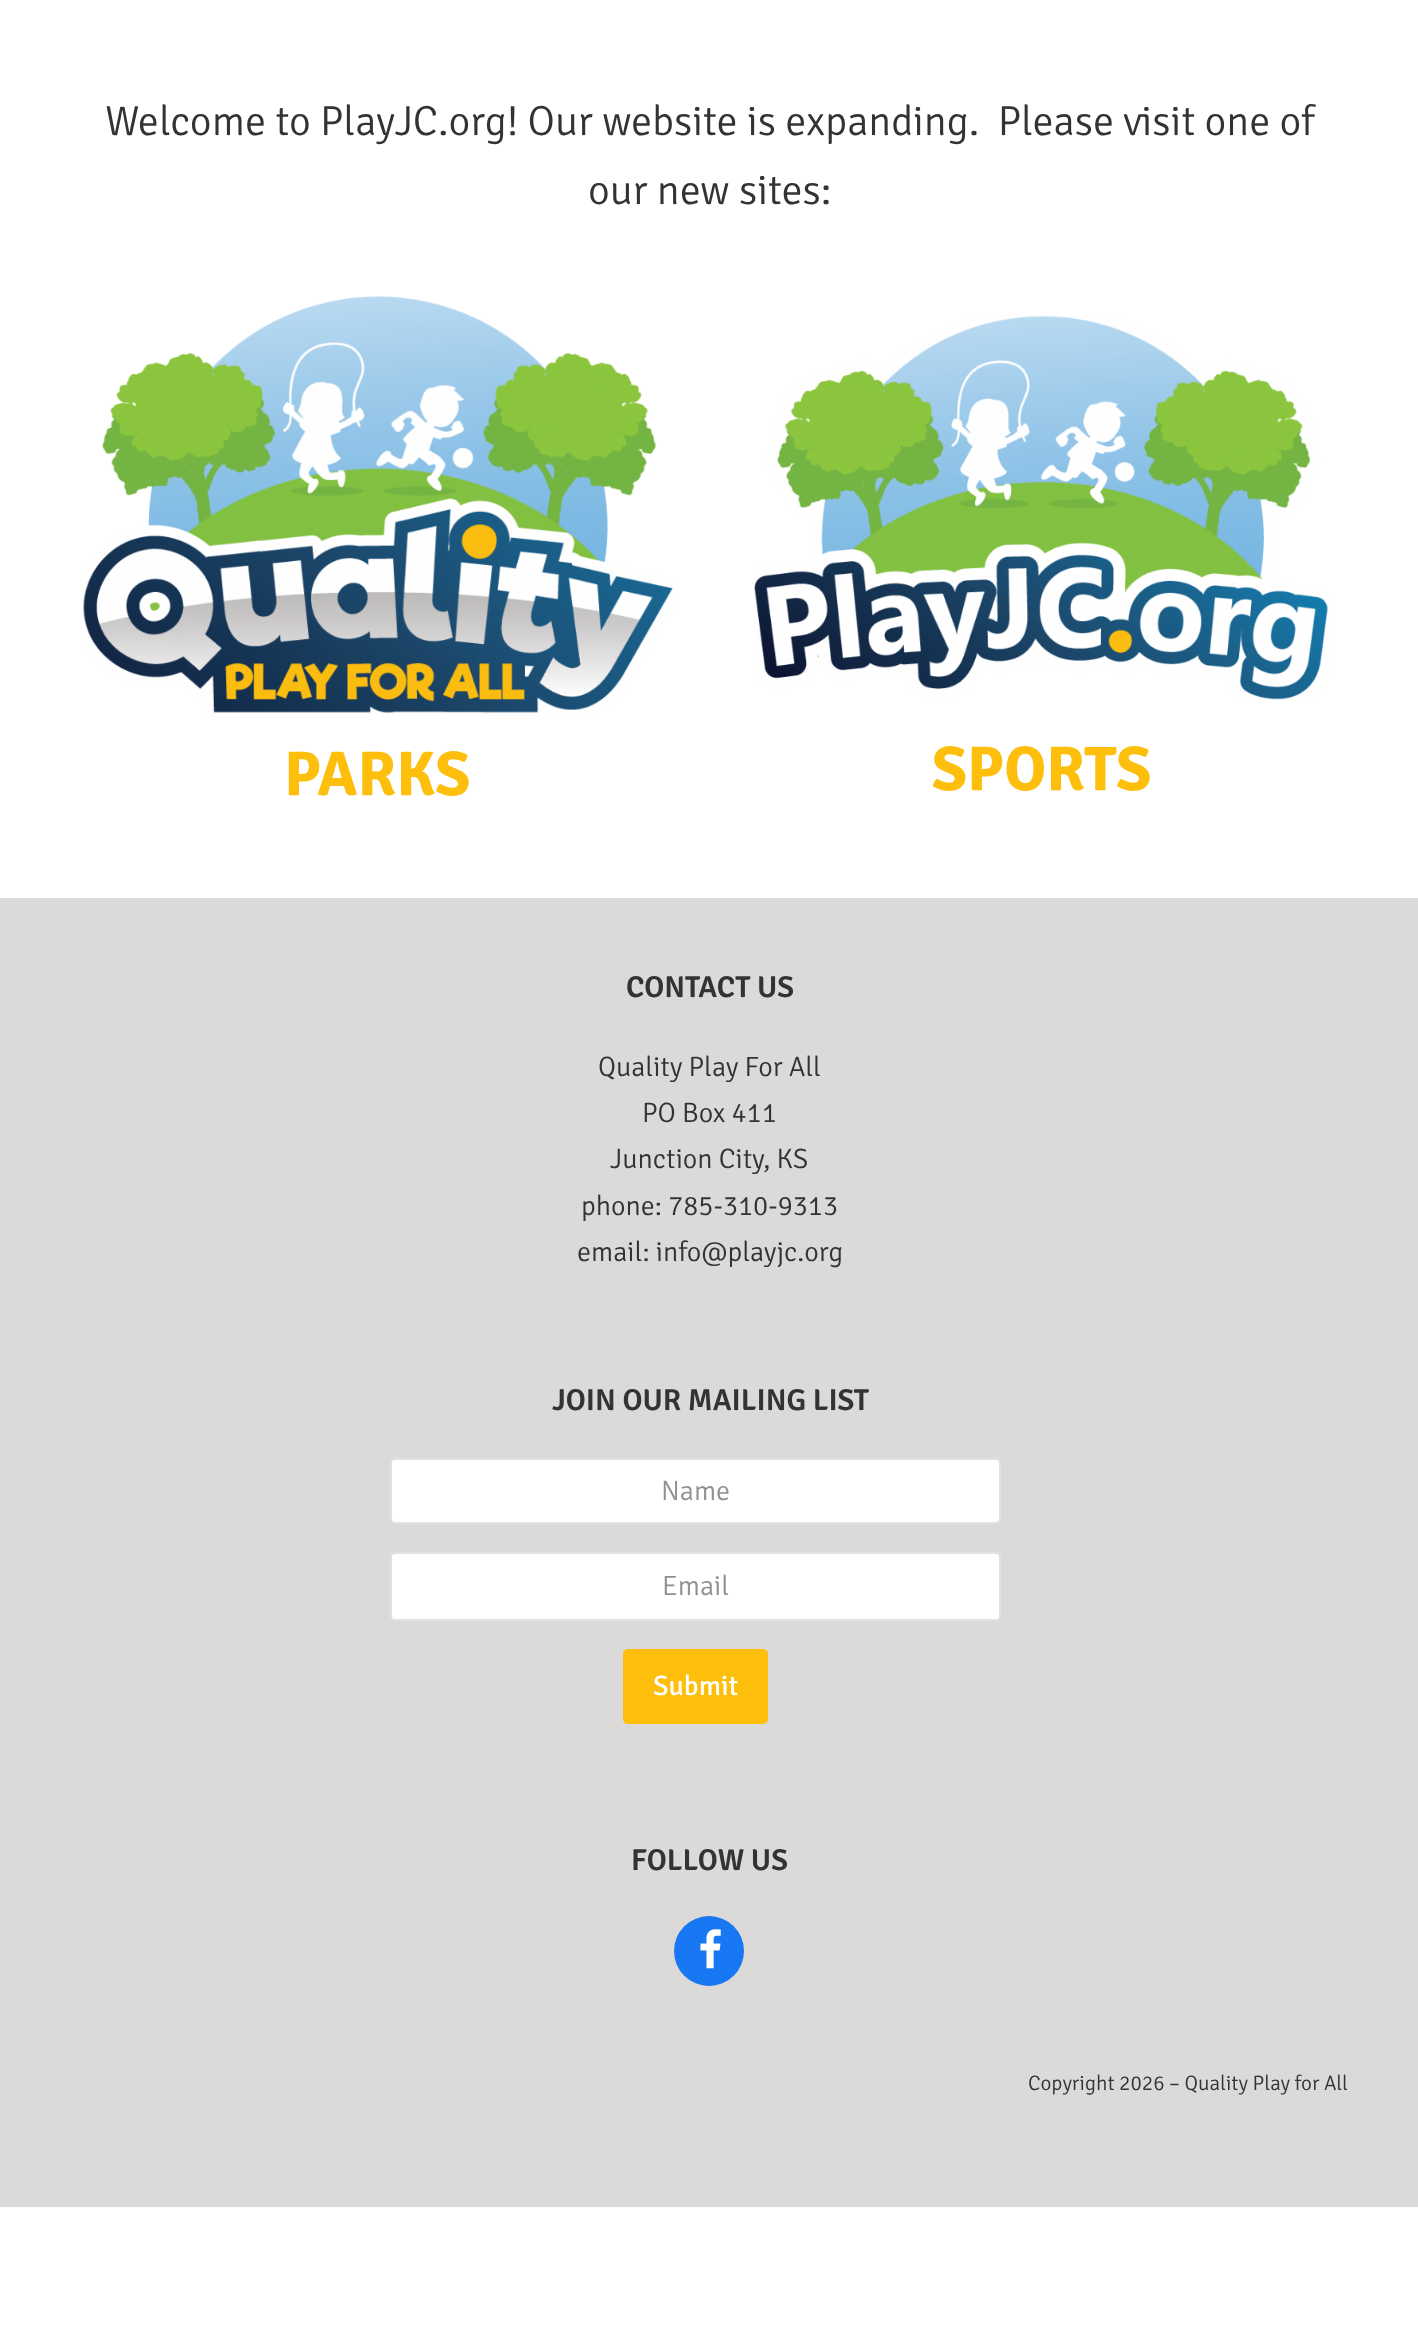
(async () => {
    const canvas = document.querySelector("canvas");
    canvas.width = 1418;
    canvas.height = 2344;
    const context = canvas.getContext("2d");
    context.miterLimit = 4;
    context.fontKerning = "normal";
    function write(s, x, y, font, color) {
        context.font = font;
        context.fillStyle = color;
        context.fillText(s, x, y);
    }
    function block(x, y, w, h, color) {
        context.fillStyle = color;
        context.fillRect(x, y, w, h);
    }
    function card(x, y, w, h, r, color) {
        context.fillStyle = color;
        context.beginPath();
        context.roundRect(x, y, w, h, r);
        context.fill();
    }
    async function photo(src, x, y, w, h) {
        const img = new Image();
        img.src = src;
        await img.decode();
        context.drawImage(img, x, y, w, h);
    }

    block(0, 0, 1418, 2344, "rgb(255, 255, 255)");
    write("Welcome to PlayJC.org! Our website is expanding.  Please visit one of", 105, 135, "300 42px Signika", "rgb(51, 51, 51)");
    write("our new sites:", 588, 204, "300 42px Signika", "rgb(51, 51, 51)");
    await photo("media/1.png", 83, 296, 590, 418);
    write("PARKS", 284, 795, "bold 63px Signika", "rgb(253, 191, 12)");
    await photo("media/2.png", 754, 315, 575, 385);
    write("SPORTS", 932, 790, "bold 63px Signika", "rgb(253, 191, 12)");
    block(0, 898, 1418, 1309, "rgb(219, 218, 217)");
    write("CONTACT US", 626, 997, "600 30.25px Signika", "rgb(51, 51, 51)");
    write("Quality Play For All", 598, 1076, "300 28px Signika", "rgb(51, 51, 51)");
    write("PO Box 411", 642, 1122, "300 28px Signika", "rgb(51, 51, 51)");
    write("Junction City, KS", 610, 1168, "300 28px Signika", "rgb(51, 51, 51)");
    write("phone: 785-310-9313", 581, 1215, "300 28px Signika", "rgb(51, 51, 51)");
    write("email: info@playjc.org", 577, 1261, "300 28px Signika", "rgb(51, 51, 51)");
    write("JOIN OUR MAILING LIST", 552, 1410, "600 30.25px Signika", "rgb(51, 51, 51)");
    context.fillStyle = "rgb(255, 255, 255)";
    context.beginPath();
    context.roundRect(391, 1459, 609, 64, 4);
    context.fill();
    context.strokeStyle = "rgb(225, 225, 225)";
    context.lineWidth = 2;
    context.stroke();
    write("Name", 661, 1500, "300 28px Signika", "rgb(144, 144, 144)");
    context.fillStyle = "rgb(255, 255, 255)";
    context.beginPath();
    context.roundRect(391, 1553, 609, 67, 4);
    context.fill();
    context.stroke();
    write("Email", 662, 1595, "300 28px Signika", "rgb(144, 144, 144)");
    card(623, 1649, 145, 75, 5, "rgb(253, 191, 12)");
    write("Submit", 653, 1695, "28px Signika", "rgb(255, 255, 255)");
    write("FOLLOW US", 631, 1870, "600 30.25px Signika", "rgb(51, 51, 51)");
    context.fillStyle = "rgb(24, 119, 242)";
    context.beginPath();
    context.arc(709, 1951, 35, 0, Math.PI * 2);
    context.fill();
    await photo("media/3.png", 700, 1929, 21, 40);
    write("Copyright 2026 – Quality Play for All", 1028, 2090, "300 21px Signika", "rgb(51, 51, 51)");
})();
